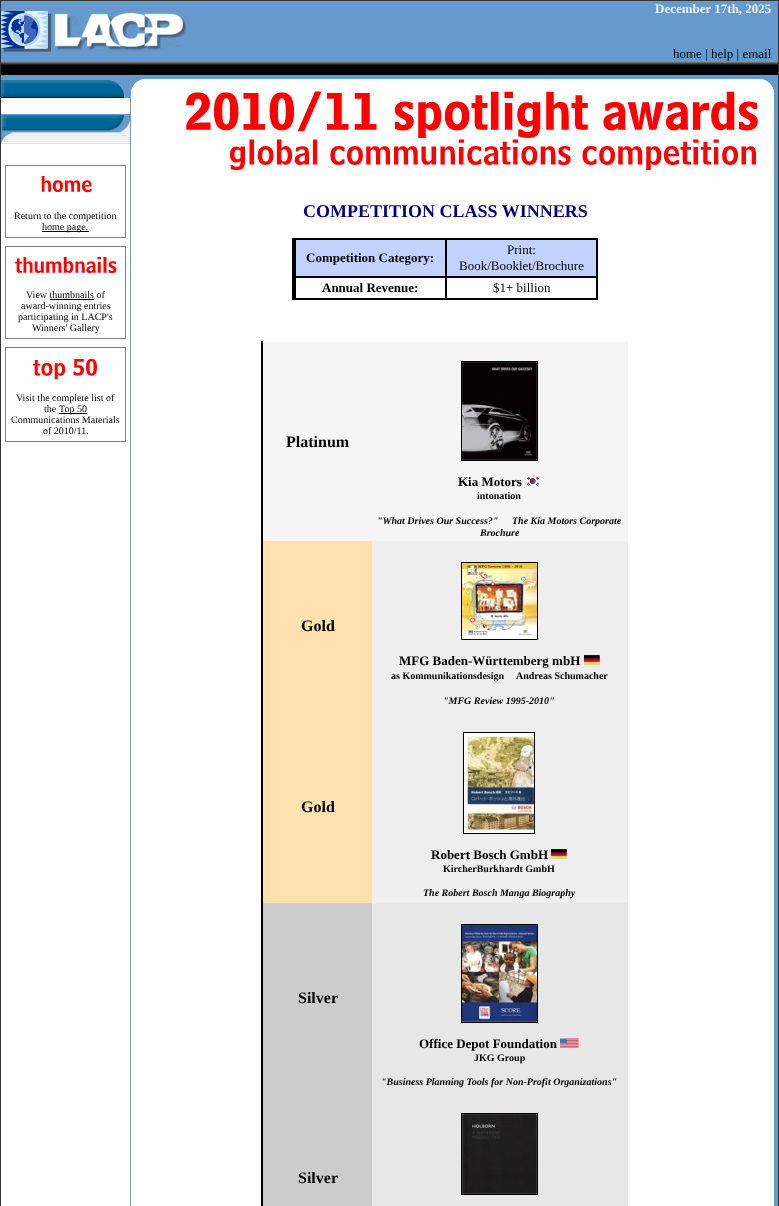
(async () => {
    const canvas = document.querySelector("canvas");
    canvas.width = 779;
    canvas.height = 1206;
    const context = canvas.getContext("2d");
    context.miterLimit = 4;
    context.fontKerning = "normal";
    function write(s, x, y, font, color) {
        context.font = font;
        context.fillStyle = color;
        context.fillText(s, x, y);
    }
    function block(x, y, w, h, color) {
        context.fillStyle = color;
        context.fillRect(x, y, w, h);
    }
    async function photo(src, x, y, w, h) {
        const img = new Image();
        img.src = src;
        await img.decode();
        context.drawImage(img, x, y, w, h);
    }

    block(0, 0, 779, 1206, "rgb(255, 255, 255)");
    block(0, 0, 779, 1, "rgb(51, 51, 51)");
    block(0, 1, 1, 1205, "rgb(51, 51, 51)");
    block(1, 1, 777, 61, "rgb(102, 153, 204)");
    await photo("media/1.png", 1, 11, 185, 41);
    write("December 17th, 2025", 655, 13, "bold 13px Liberation Serif", "rgb(238, 238, 238)");
    write("home | help | email", 673, 58, "13px Liberation Serif", "rgb(0, 0, 0)");
    block(778, 1, 1, 1205, "rgb(51, 51, 51)");
    await photo("media/2.png", 1, 62, 777, 13);
    block(1, 75, 777, 4, "rgb(102, 153, 204)");
    block(130, 79, 1, 1127, "rgb(102, 153, 204)");
    await photo("media/3.png", 131, 79, 12, 11);
    await photo("media/4.png", 186, 91, 572, 79);
    await photo("media/5.png", 762, 79, 12, 11);
    block(774, 79, 4, 1127, "rgb(102, 153, 204)");
    await photo("media/6.png", 1, 79, 129, 19);
    await photo("media/7.png", 1, 114, 129, 30);
    block(5, 165, 121, 1, "rgb(128, 128, 128)");
    block(125, 165, 1, 73, "rgb(128, 128, 128)");
    block(5, 237, 121, 1, "rgb(128, 128, 128)");
    block(5, 165, 1, 73, "rgb(128, 128, 128)");
    await photo("media/8.png", 41, 176, 51, 17);
    write("Return to the competition", 14, 219, "10px Liberation Serif", "rgb(0, 0, 0)");
    block(42, 231, 47, 1, "rgb(0, 0, 0)");
    write("home page.", 42, 230, "10px Liberation Serif", "rgb(0, 0, 0)");
    block(5, 246, 121, 1, "rgb(128, 128, 128)");
    block(125, 246, 1, 93, "rgb(128, 128, 128)");
    block(5, 338, 121, 1, "rgb(128, 128, 128)");
    block(5, 246, 1, 93, "rgb(128, 128, 128)");
    await photo("media/9.png", 15, 257, 102, 17);
    write("View thumbnails of", 26, 298, "10px Liberation Serif", "rgb(0, 0, 0)");
    block(50, 299, 44, 1, "rgb(0, 0, 0)");
    write("award-winning entries", 21, 309, "10px Liberation Serif", "rgb(0, 0, 0)");
    write("participating in LACP's", 18, 320, "10px Liberation Serif", "rgb(0, 0, 0)");
    write("Winners' Gallery", 32, 331, "10px Liberation Serif", "rgb(0, 0, 0)");
    block(5, 347, 121, 1, "rgb(128, 128, 128)");
    block(125, 347, 1, 95, "rgb(128, 128, 128)");
    block(5, 441, 121, 1, "rgb(128, 128, 128)");
    block(5, 347, 1, 95, "rgb(128, 128, 128)");
    await photo("media/10.png", 33, 358, 64, 22);
    write("Visit the complete list of", 16, 401, "10px Liberation Serif", "rgb(0, 0, 0)");
    write("the", 44, 412, "10px Liberation Serif", "rgb(0, 0, 0)");
    block(59, 413, 28, 1, "rgb(0, 0, 0)");
    write("Top 50", 59, 412, "10px Liberation Serif", "rgb(0, 0, 0)");
    write("Communications Materials", 11, 423, "10px Liberation Serif", "rgb(0, 0, 0)");
    write("of 2010/11.", 43, 434, "10px Liberation Serif", "rgb(0, 0, 0)");
    write("COMPETITION CLASS WINNERS", 303, 217, "bold 18px Liberation Serif", "rgb(0, 0, 128)");
    block(292, 238, 306, 62, "rgb(0, 0, 0)");
    block(296, 240, 149, 36, "rgb(193, 210, 255)");
    write("Competition Category:", 306, 262, "bold 13px Liberation Serif", "rgb(0, 0, 0)");
    block(447, 240, 149, 36, "rgb(193, 210, 255)");
    write("Print:", 507, 254, "13px Liberation Serif", "rgb(0, 0, 0)");
    write("Book/Booklet/Brochure", 459, 270, "13px Liberation Serif", "rgb(0, 0, 0)");
    block(296, 278, 149, 20, "rgb(255, 255, 255)");
    write("Annual Revenue:", 322, 292, "bold 13px Liberation Serif", "rgb(0, 0, 0)");
    block(447, 278, 149, 20, "rgb(255, 255, 255)");
    write("$1+ billion", 493, 292, "13px Liberation Serif", "rgb(0, 0, 0)");
    block(263, 342, 365, 199, "rgb(245, 245, 245)");
    write("Platinum", 286, 447, "bold 16px Liberation Serif", "rgb(0, 0, 0)");
    context.strokeStyle = "rgb(0, 0, 0)";
    context.strokeRect(461.5, 361.5, 76, 99);
    await photo("media/11.png", 462, 362, 75, 98);
    write("Kia Motors", 458, 486, "bold 13px Liberation Serif", "rgb(0, 0, 0)");
    await photo("media/12.png", 525, 476, 15, 10);
    write("intonation", 477, 499, "bold 10px Liberation Serif", "rgb(0, 0, 0)");
    write("\"What Drives Our Success?\"", 377, 524, "italic bold 10px Liberation Serif", "rgb(0, 0, 0)");
    write("The Kia Motors Corporate", 512, 524, "italic bold 10px Liberation Serif", "rgb(0, 0, 0)");
    write("Brochure", 480, 536, "italic bold 10px Liberation Serif", "rgb(0, 0, 0)");
    block(263, 541, 109, 362, "rgb(255, 224, 175)");
    write("Gold", 301, 631, "bold 16px Liberation Serif", "rgb(0, 0, 0)");
    block(372, 541, 256, 362, "rgb(238, 238, 238)");
    context.strokeRect(461.5, 562.5, 76, 77);
    await photo("media/13.png", 462, 563, 75, 76);
    write("MFG Baden-Württemberg mbH", 399, 665, "bold 13px Liberation Serif", "rgb(0, 0, 0)");
    await photo("media/14.png", 584, 655, 16, 10);
    write("as Kommunikationsdesign", 391, 679, "bold 10px Liberation Serif", "rgb(0, 0, 0)");
    write("Andreas Schumacher", 516, 679, "bold 10px Liberation Serif", "rgb(0, 0, 0)");
    write("\"MFG Review 1995-2010\"", 443, 704, "italic bold 10px Liberation Serif", "rgb(0, 0, 0)");
    write("Gold", 301, 812, "bold 16px Liberation Serif", "rgb(0, 0, 0)");
    context.strokeRect(463.5, 732.5, 71, 101);
    await photo("media/15.png", 464, 733, 70, 100);
    write("Robert Bosch GmbH", 431, 859, "bold 13px Liberation Serif", "rgb(0, 0, 0)");
    await photo("media/14.png", 551, 849, 16, 10);
    write("KircherBurkhardt GmbH", 443, 872, "bold 10px Liberation Serif", "rgb(0, 0, 0)");
    write("The Robert Bosch Manga Biography", 423, 896, "italic bold 10px Liberation Serif", "rgb(0, 0, 0)");
    block(263, 903, 109, 303, "rgb(204, 204, 204)");
    write("Silver", 298, 1003, "bold 16px Liberation Serif", "rgb(0, 0, 0)");
    block(372, 903, 256, 303, "rgb(231, 231, 231)");
    context.strokeRect(461.5, 924.5, 76, 98);
    await photo("media/16.png", 462, 925, 75, 97);
    write("Office Depot Foundation", 419, 1048, "bold 13px Liberation Serif", "rgb(0, 0, 0)");
    await photo("media/17.png", 560, 1038, 19, 10);
    write("JKG Group", 474, 1061, "bold 10px Liberation Serif", "rgb(0, 0, 0)");
    write("\"Business Planning Tools for Non-Profit Organizations\"", 381, 1085, "italic bold 10px Liberation Serif", "rgb(0, 0, 0)");
    block(261, 341, 2, 865, "rgb(0, 0, 0)");
    write("Silver", 298, 1183, "bold 16px Liberation Serif", "rgb(0, 0, 0)");
    context.strokeRect(461.5, 1113.5, 76, 81);
    await photo("media/18.png", 462, 1114, 75, 80);
})();
